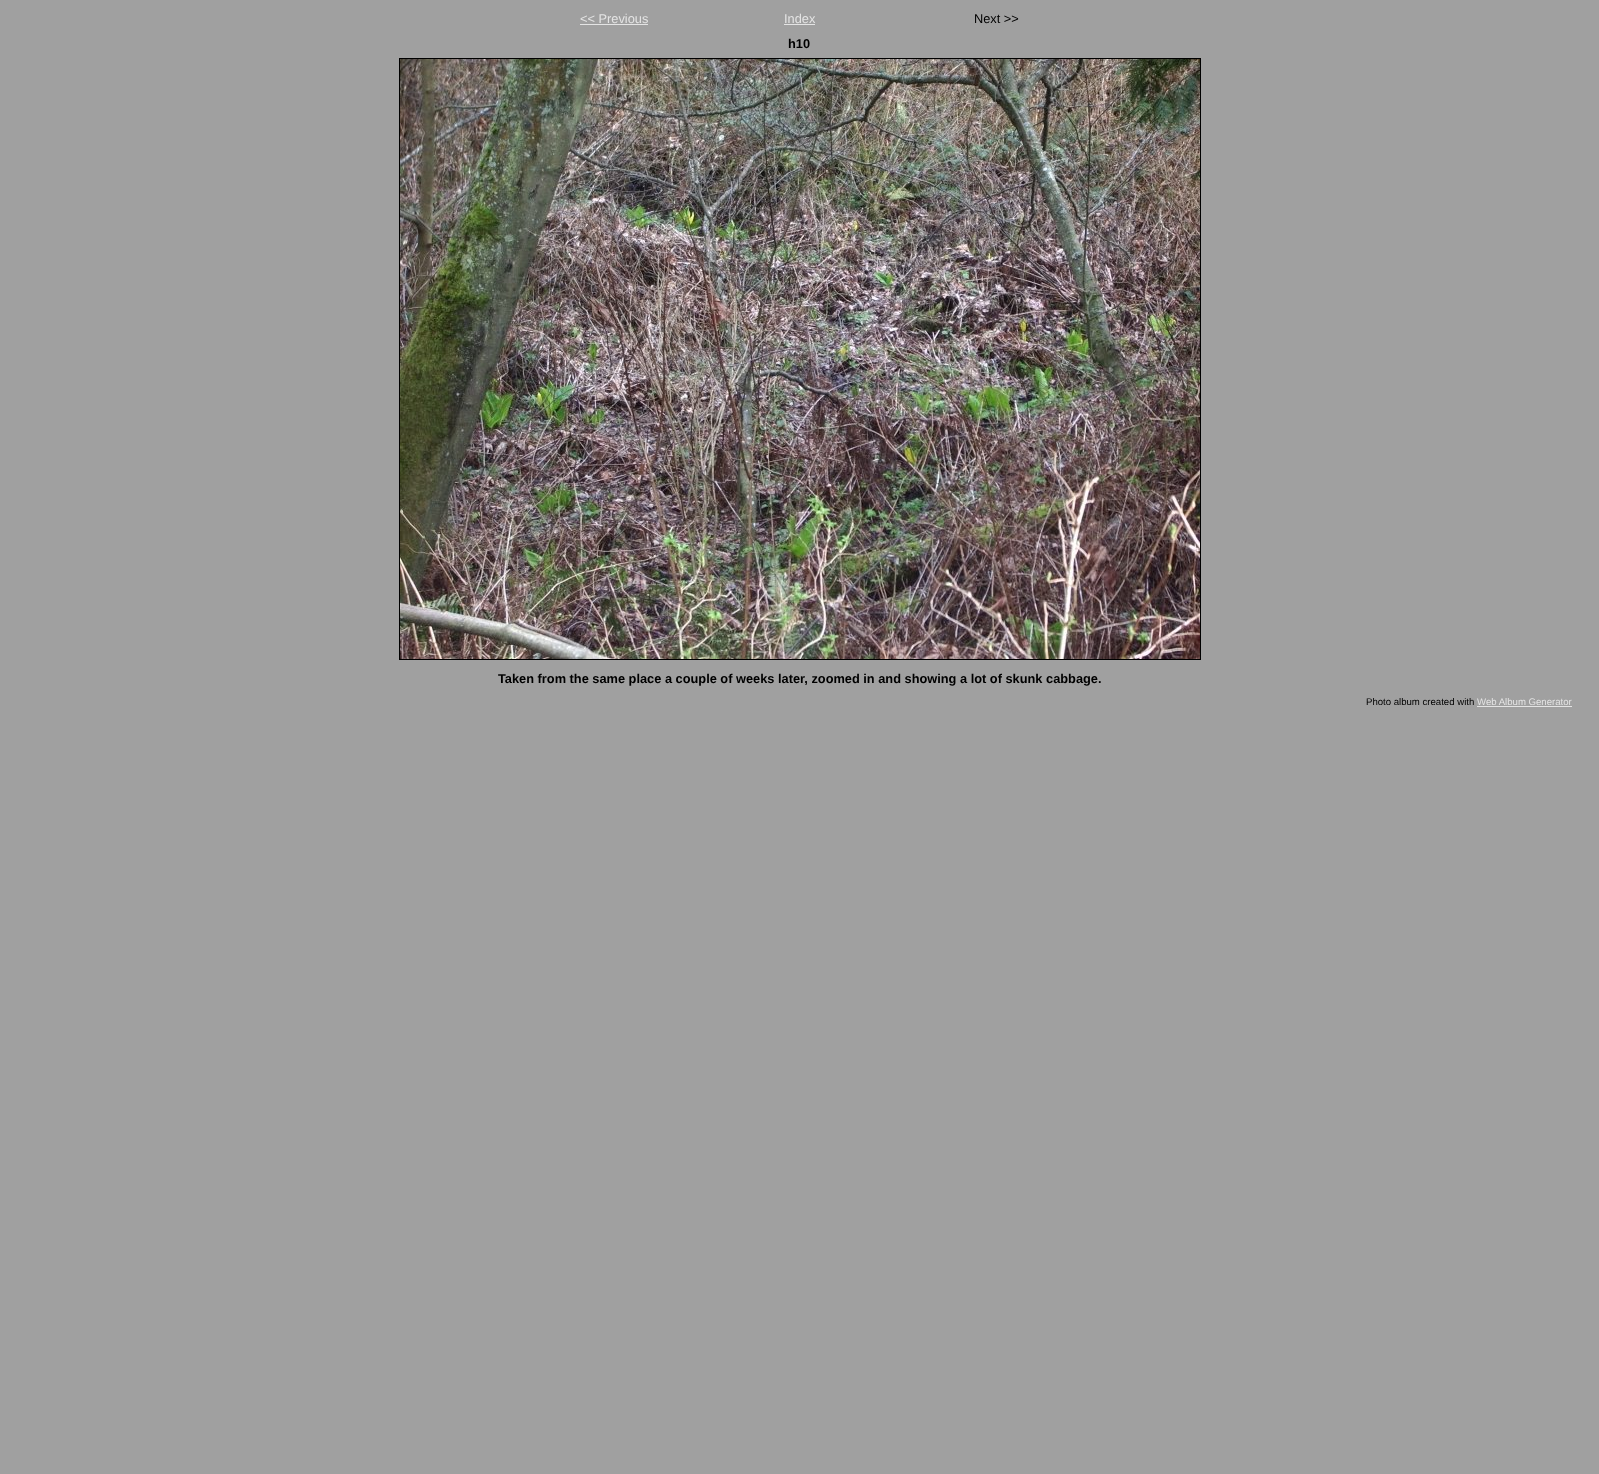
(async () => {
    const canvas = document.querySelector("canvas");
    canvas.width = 1599;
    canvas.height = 1474;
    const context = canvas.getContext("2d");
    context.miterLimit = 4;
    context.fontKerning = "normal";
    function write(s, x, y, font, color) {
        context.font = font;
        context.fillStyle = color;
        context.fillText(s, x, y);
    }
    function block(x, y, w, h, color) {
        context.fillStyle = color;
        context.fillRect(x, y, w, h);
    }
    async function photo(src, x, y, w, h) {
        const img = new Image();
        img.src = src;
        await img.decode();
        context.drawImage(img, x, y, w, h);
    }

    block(0, 0, 1599, 1474, "rgb(160, 160, 160)");
    write("<< Previous", 580, 23, "12.8px Liberation Sans", "rgb(228, 228, 228)");
    block(580, 24, 68, 1, "rgb(228, 228, 228)");
    write("Index", 784, 23, "12.8px Liberation Sans", "rgb(228, 228, 228)");
    block(784, 24, 31, 1, "rgb(228, 228, 228)");
    write("Next >>", 974, 23, "12.8px Liberation Sans", "rgb(0, 0, 0)");
    write("h10", 788, 48, "bold 12.8px Liberation Sans", "rgb(0, 0, 0)");
    context.strokeStyle = "rgb(0, 0, 0)";
    context.strokeRect(399.5, 58.5, 801, 601);
    await photo("media/1.png", 400, 59, 800, 600);
    write("Taken from the same place a couple of weeks later, zoomed in and showing a lot of skunk cabbage.", 498, 683, "bold 12.8px Liberation Sans", "rgb(0, 0, 0)");
    write("Photo album created with", 1366, 705, "9.6px Liberation Sans", "rgb(0, 0, 0)");
    write("Web Album Generator", 1477, 705, "9.6px Liberation Sans", "rgb(228, 228, 228)");
    block(1477, 706, 95, 1, "rgb(228, 228, 228)");
})();
